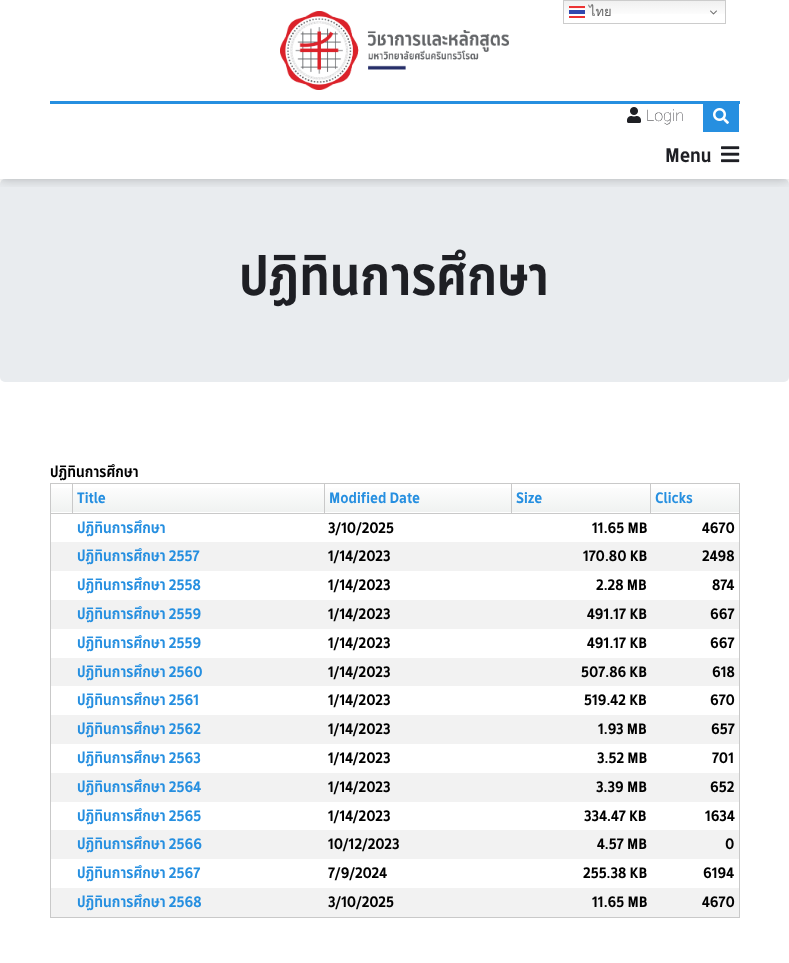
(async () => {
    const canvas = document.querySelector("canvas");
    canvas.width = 789;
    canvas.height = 963;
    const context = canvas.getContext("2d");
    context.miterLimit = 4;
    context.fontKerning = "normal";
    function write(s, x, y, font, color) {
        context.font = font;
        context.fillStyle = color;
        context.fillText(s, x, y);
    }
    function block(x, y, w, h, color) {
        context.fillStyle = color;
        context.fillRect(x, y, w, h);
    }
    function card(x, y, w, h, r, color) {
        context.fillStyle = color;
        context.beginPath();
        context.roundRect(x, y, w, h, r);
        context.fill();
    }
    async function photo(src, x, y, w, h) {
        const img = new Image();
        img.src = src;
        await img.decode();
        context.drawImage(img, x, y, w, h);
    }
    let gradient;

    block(0, 0, 789, 963, "rgb(255, 255, 255)");
    card(0, 179, 789, 203, 5, "rgb(233, 236, 239)");
    context.save();
    context.beginPath();
    context.rect(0, 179, 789, 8);
    context.clip();
    context.fillStyle = "rgba(0, 0, 0, 0.25)";
    context.filter = "blur(6px)";
    context.beginPath();
    context.rect(0, 0, 789, 179);
    context.fill();
    context.filter = "none";
    context.restore();
    gradient = context.createLinearGradient(645, 0, 645, 24);
    gradient.addColorStop(0, "rgb(239, 239, 239)");
    gradient.addColorStop(0.7, "rgb(255, 255, 255)");
    context.fillStyle = gradient;
    context.fillRect(564, 1, 161, 13);
    context.strokeStyle = "rgb(204, 204, 204)";
    context.strokeRect(563.5, 0.5, 162, 23);
    await photo("media/1.png", 569, 6, 16, 12);
    write("ไทย", 589, 16, "13px Loma", "rgb(102, 102, 102)");
    await photo("media/2.png", 710, 10, 7, 5);
    await photo("media/3.png", 280, 11, 229, 79);
    block(50, 101, 690, 3, "rgb(38, 143, 224)");
    await photo("media/4.png", 627, 107, 14, 16);
    write("Login", 646, 121, "100 16px Roboto", "rgb(30, 31, 36)");
    block(703, 104, 36, 28, "rgb(38, 143, 224)");
    await photo("media/5.png", 713, 108, 16, 16);
    write("Menu", 665, 162, "21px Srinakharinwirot", "rgb(30, 31, 36)");
    await photo("media/6.png", 721, 146, 19, 17);
    write("ปฏิทินการศึกษา", 239, 295, "56px Srinakharinwirot", "rgb(30, 31, 36)");
    write("ปฏิทินการศึกษา", 50, 477, "16px Srinakharinwirot", "rgb(0, 0, 0)");
    block(50, 483, 690, 1, "rgb(201, 201, 201)");
    block(739, 483, 1, 435, "rgb(201, 201, 201)");
    block(50, 917, 690, 1, "rgb(201, 201, 201)");
    block(50, 483, 1, 435, "rgb(201, 201, 201)");
    gradient = context.createLinearGradient(61, 483, 61, 512);
    gradient.addColorStop(0, "rgb(255, 255, 255)");
    gradient.addColorStop(1, "rgb(240, 242, 241)");
    context.fillStyle = gradient;
    context.fillRect(51, 488, 21, 24);
    block(650, 513, 90, 1, "rgb(201, 201, 201)");
    block(650, 483, 1, 31, "rgb(201, 201, 201)");
    block(511, 513, 140, 1, "rgb(201, 201, 201)");
    block(511, 483, 1, 31, "rgb(201, 201, 201)");
    block(324, 513, 188, 1, "rgb(201, 201, 201)");
    block(324, 483, 1, 31, "rgb(201, 201, 201)");
    block(72, 513, 253, 1, "rgb(201, 201, 201)");
    block(72, 483, 1, 31, "rgb(201, 201, 201)");
    block(50, 513, 23, 1, "rgb(201, 201, 201)");
    gradient = context.createLinearGradient(198, 483, 198, 512);
    gradient.addColorStop(0, "rgb(255, 255, 255)");
    gradient.addColorStop(1, "rgb(240, 242, 241)");
    context.fillStyle = gradient;
    context.fillRect(73, 488, 251, 24);
    write("Title", 77, 503, "16px Srinakharinwirot", "rgb(38, 143, 224)");
    gradient = context.createLinearGradient(418, 483, 418, 512);
    gradient.addColorStop(0, "rgb(255, 255, 255)");
    gradient.addColorStop(1, "rgb(240, 242, 241)");
    context.fillStyle = gradient;
    context.fillRect(325, 488, 186, 24);
    write("Modified Date", 329, 503, "16px Srinakharinwirot", "rgb(38, 143, 224)");
    gradient = context.createLinearGradient(581, 483, 581, 512);
    gradient.addColorStop(0, "rgb(255, 255, 255)");
    gradient.addColorStop(1, "rgb(240, 242, 241)");
    context.fillStyle = gradient;
    context.fillRect(512, 488, 138, 24);
    write("Size", 516, 503, "16px Srinakharinwirot", "rgb(38, 143, 224)");
    gradient = context.createLinearGradient(695, 483, 695, 512);
    gradient.addColorStop(0, "rgb(255, 255, 255)");
    gradient.addColorStop(1, "rgb(240, 242, 241)");
    context.fillStyle = gradient;
    context.fillRect(651, 488, 88, 24);
    write("Clicks", 655, 503, "16px Srinakharinwirot", "rgb(38, 143, 224)");
    write("ปฏิทินการศึกษา", 77, 533, "16px Srinakharinwirot", "rgb(38, 143, 224)");
    write("3/10/2025", 328, 533, "16px Srinakharinwirot", "rgb(0, 0, 0)");
    write("11.65 MB", 592, 533, "16px Srinakharinwirot", "rgb(0, 0, 0)");
    write("4670", 702, 533, "16px Srinakharinwirot", "rgb(0, 0, 0)");
    block(51, 542, 688, 29, "rgb(242, 242, 242)");
    write("ปฏิทินการศึกษา 2557", 77, 561, "16px Srinakharinwirot", "rgb(38, 143, 224)");
    write("1/14/2023", 328, 561, "16px Srinakharinwirot", "rgb(0, 0, 0)");
    write("170.80 KB", 583, 561, "16px Srinakharinwirot", "rgb(0, 0, 0)");
    write("2498", 702, 561, "16px Srinakharinwirot", "rgb(0, 0, 0)");
    write("ปฏิทินการศึกษา 2558", 77, 590, "16px Srinakharinwirot", "rgb(38, 143, 224)");
    write("1/14/2023", 328, 590, "16px Srinakharinwirot", "rgb(0, 0, 0)");
    write("2.28 MB", 596, 590, "16px Srinakharinwirot", "rgb(0, 0, 0)");
    write("874", 712, 590, "16px Srinakharinwirot", "rgb(0, 0, 0)");
    block(51, 600, 688, 29, "rgb(242, 242, 242)");
    write("ปฏิทินการศึกษา 2559", 77, 619, "16px Srinakharinwirot", "rgb(38, 143, 224)");
    write("1/14/2023", 328, 619, "16px Srinakharinwirot", "rgb(0, 0, 0)");
    write("491.17 KB", 587, 619, "16px Srinakharinwirot", "rgb(0, 0, 0)");
    write("667", 710, 619, "16px Srinakharinwirot", "rgb(0, 0, 0)");
    write("ปฏิทินการศึกษา 2559", 77, 648, "16px Srinakharinwirot", "rgb(38, 143, 224)");
    write("1/14/2023", 328, 648, "16px Srinakharinwirot", "rgb(0, 0, 0)");
    write("491.17 KB", 587, 648, "16px Srinakharinwirot", "rgb(0, 0, 0)");
    write("667", 710, 648, "16px Srinakharinwirot", "rgb(0, 0, 0)");
    block(51, 658, 688, 28, "rgb(242, 242, 242)");
    write("ปฏิทินการศึกษา 2560", 77, 677, "16px Srinakharinwirot", "rgb(38, 143, 224)");
    write("1/14/2023", 328, 677, "16px Srinakharinwirot", "rgb(0, 0, 0)");
    write("507.86 KB", 581, 677, "16px Srinakharinwirot", "rgb(0, 0, 0)");
    write("618", 712, 677, "16px Srinakharinwirot", "rgb(0, 0, 0)");
    write("ปฏิทินการศึกษา 2561", 77, 705, "16px Srinakharinwirot", "rgb(38, 143, 224)");
    write("1/14/2023", 328, 705, "16px Srinakharinwirot", "rgb(0, 0, 0)");
    write("519.42 KB", 584, 705, "16px Srinakharinwirot", "rgb(0, 0, 0)");
    write("670", 710, 705, "16px Srinakharinwirot", "rgb(0, 0, 0)");
    block(51, 715, 688, 29, "rgb(242, 242, 242)");
    write("ปฏิทินการศึกษา 2562", 77, 734, "16px Srinakharinwirot", "rgb(38, 143, 224)");
    write("1/14/2023", 328, 734, "16px Srinakharinwirot", "rgb(0, 0, 0)");
    write("1.93 MB", 598, 734, "16px Srinakharinwirot", "rgb(0, 0, 0)");
    write("657", 711, 734, "16px Srinakharinwirot", "rgb(0, 0, 0)");
    write("ปฏิทินการศึกษา 2563", 77, 763, "16px Srinakharinwirot", "rgb(38, 143, 224)");
    write("1/14/2023", 328, 763, "16px Srinakharinwirot", "rgb(0, 0, 0)");
    write("3.52 MB", 597, 763, "16px Srinakharinwirot", "rgb(0, 0, 0)");
    write("701", 712, 763, "16px Srinakharinwirot", "rgb(0, 0, 0)");
    block(51, 773, 688, 29, "rgb(242, 242, 242)");
    write("ปฏิทินการศึกษา 2564", 77, 792, "16px Srinakharinwirot", "rgb(38, 143, 224)");
    write("1/14/2023", 328, 792, "16px Srinakharinwirot", "rgb(0, 0, 0)");
    write("3.39 MB", 596, 792, "16px Srinakharinwirot", "rgb(0, 0, 0)");
    write("652", 710, 792, "16px Srinakharinwirot", "rgb(0, 0, 0)");
    write("ปฏิทินการศึกษา 2565", 77, 821, "16px Srinakharinwirot", "rgb(38, 143, 224)");
    write("1/14/2023", 328, 821, "16px Srinakharinwirot", "rgb(0, 0, 0)");
    write("334.47 KB", 584, 821, "16px Srinakharinwirot", "rgb(0, 0, 0)");
    write("1634", 705, 821, "16px Srinakharinwirot", "rgb(0, 0, 0)");
    block(51, 830, 688, 29, "rgb(242, 242, 242)");
    write("ปฏิทินการศึกษา 2566", 77, 849, "16px Srinakharinwirot", "rgb(38, 143, 224)");
    write("10/12/2023", 328, 849, "16px Srinakharinwirot", "rgb(0, 0, 0)");
    write("4.57 MB", 597, 849, "16px Srinakharinwirot", "rgb(0, 0, 0)");
    write("0", 725, 849, "16px Srinakharinwirot", "rgb(0, 0, 0)");
    write("ปฏิทินการศึกษา 2567", 77, 878, "16px Srinakharinwirot", "rgb(38, 143, 224)");
    write("7/9/2024", 328, 878, "16px Srinakharinwirot", "rgb(0, 0, 0)");
    write("255.38 KB", 583, 878, "16px Srinakharinwirot", "rgb(0, 0, 0)");
    write("6194", 703, 878, "16px Srinakharinwirot", "rgb(0, 0, 0)");
    block(51, 888, 688, 29, "rgb(242, 242, 242)");
    write("ปฏิทินการศึกษา 2568", 77, 907, "16px Srinakharinwirot", "rgb(38, 143, 224)");
    write("3/10/2025", 328, 907, "16px Srinakharinwirot", "rgb(0, 0, 0)");
    write("11.65 MB", 592, 907, "16px Srinakharinwirot", "rgb(0, 0, 0)");
    write("4670", 702, 907, "16px Srinakharinwirot", "rgb(0, 0, 0)");
})();
